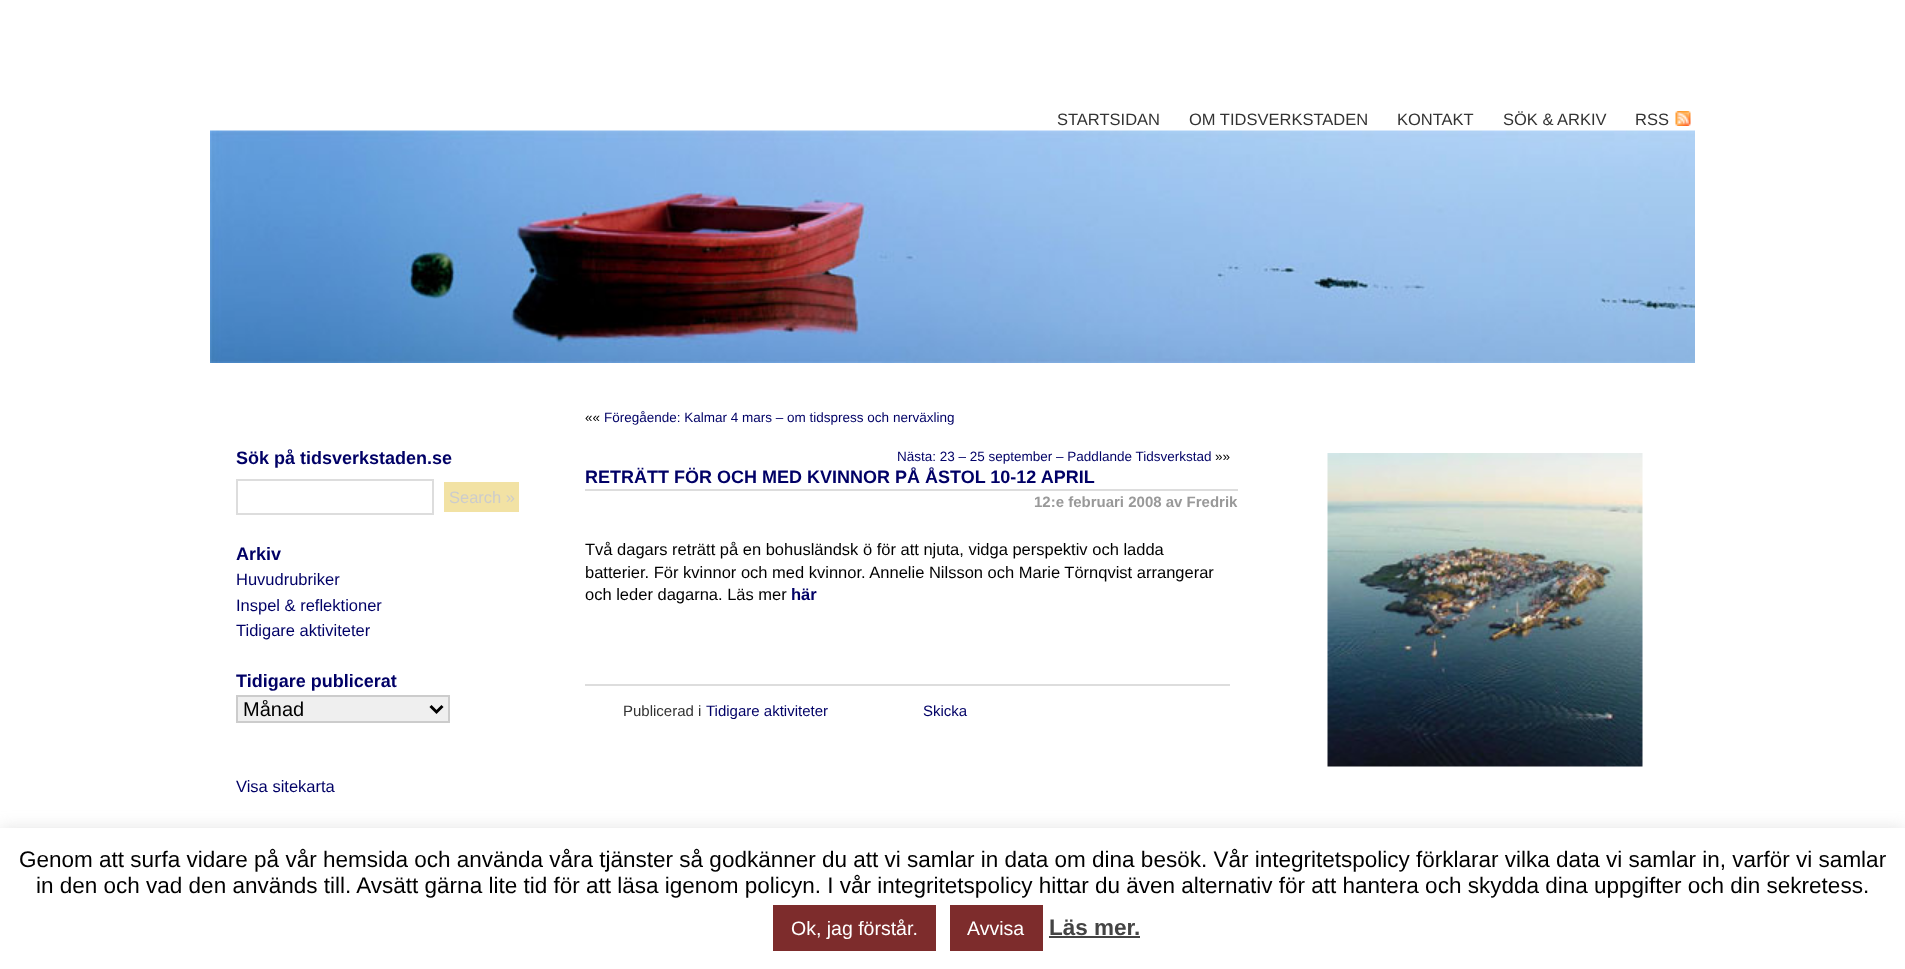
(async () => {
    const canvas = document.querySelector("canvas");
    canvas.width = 1905;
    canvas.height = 969;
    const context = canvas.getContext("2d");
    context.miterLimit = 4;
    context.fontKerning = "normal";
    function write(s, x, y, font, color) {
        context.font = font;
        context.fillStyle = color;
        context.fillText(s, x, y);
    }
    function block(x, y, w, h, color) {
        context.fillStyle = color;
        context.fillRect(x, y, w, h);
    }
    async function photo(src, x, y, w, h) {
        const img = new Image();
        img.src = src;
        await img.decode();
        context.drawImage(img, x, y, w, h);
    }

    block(0, 0, 1905, 969, "rgb(255, 255, 255)");
    write("STARTSIDAN", 1057, 125, "16.5px Liberation Sans", "rgb(51, 51, 51)");
    write("OM TIDSVERKSTADEN", 1189, 125, "16.5px Liberation Sans", "rgb(51, 51, 51)");
    write("KONTAKT", 1397, 125, "16.5px Liberation Sans", "rgb(51, 51, 51)");
    write("SÖK & ARKIV", 1503, 125, "16.5px Liberation Sans", "rgb(51, 51, 51)");
    write("RSS", 1635, 125, "16.5px Liberation Sans", "rgb(51, 51, 51)");
    await photo("media/1.png", 1675, 111, 16, 15);
    await photo("media/2.png", 210, 130, 1485, 233);
    write("Sök på tidsverkstaden.se", 236, 464, "bold 18px Liberation Sans", "rgb(0, 0, 102)");
    context.strokeStyle = "rgb(221, 221, 221)";
    context.lineWidth = 2;
    context.strokeRect(237, 480, 196, 34);
    block(444, 482, 75, 30, "rgb(242, 226, 164)");
    write("Search »", 449, 503, "16.5px Liberation Sans", "rgb(204, 204, 204)");
    write("Arkiv", 236, 560, "bold 18px Liberation Sans", "rgb(0, 0, 102)");
    write("Huvudrubriker", 236, 585, "16.5px Liberation Sans", "rgb(0, 0, 102)");
    write("Inspel & reflektioner", 236, 611, "16.5px Liberation Sans", "rgb(0, 0, 102)");
    write("Tidigare aktiviteter", 236, 636, "16.5px Liberation Sans", "rgb(0, 0, 102)");
    write("Tidigare publicerat", 236, 687, "bold 18px Liberation Sans", "rgb(0, 0, 102)");
    context.fillStyle = "rgb(239, 239, 239)";
    context.beginPath();
    context.rect(237, 696, 212, 26);
    context.fill();
    context.strokeStyle = "rgb(204, 204, 204)";
    context.stroke();
    context.beginPath();
    context.moveTo(430.5, 706);
    context.lineTo(436.5, 712);
    context.lineTo(442.5, 706);
    context.strokeStyle = "rgb(0, 0, 0)";
    context.lineWidth = 3;
    context.stroke();
    write("Månad", 243, 716, "20px Liberation Sans", "rgb(0, 0, 0)");
    write("Visa sitekarta", 236, 792, "16.5px Liberation Sans", "rgb(0, 0, 102)");
    write("««", 585, 422, "13.5px Liberation Sans", "rgb(0, 0, 0)");
    write("Föregående: Kalmar 4 mars – om tidspress och nerväxling", 604, 422, "13.5px Liberation Sans", "rgb(0, 0, 102)");
    write("Nästa: 23 – 25 september – Paddlande Tidsverkstad", 897, 461, "13.5px Liberation Sans", "rgb(0, 0, 102)");
    write("»»", 1215, 461, "13.5px Liberation Sans", "rgb(0, 0, 0)");
    block(585, 489, 653, 2, "rgb(221, 221, 221)");
    write("RETRÄTT FÖR OCH MED KVINNOR PÅ ÅSTOL 10-12 APRIL", 585, 483, "bold 18px Liberation Sans", "rgb(0, 0, 102)");
    write("12:e februari 2008 av Fredrik", 1034, 507, "bold 15px Liberation Sans", "rgb(153, 153, 153)");
    write("Två dagars reträtt på en bohusländsk ö för att njuta, vidga perspektiv och ladda", 585, 555, "16.5px Liberation Sans", "rgb(0, 0, 0)");
    write("batterier. För kvinnor och med kvinnor. Annelie Nilsson och Marie Törnqvist arrangerar", 585, 578, "16.5px Liberation Sans", "rgb(0, 0, 0)");
    write("och leder dagarna. Läs mer", 585, 600, "16.5px Liberation Sans", "rgb(0, 0, 0)");
    write("här", 791, 600, "bold 16.5px Liberation Sans", "rgb(0, 0, 102)");
    block(585, 684, 645, 2, "rgb(221, 221, 221)");
    write("Publicerad i", 623, 716, "15px Liberation Sans", "rgb(51, 51, 51)");
    write("Tidigare aktiviteter", 706, 716, "15px Liberation Sans", "rgb(0, 0, 102)");
    write("Skicka", 923, 716, "15px Liberation Sans", "rgb(0, 0, 102)");
    await photo("media/3.png", 1327, 453, 316, 314);
    context.fillStyle = "rgba(172, 171, 171, 0.3)";
    context.filter = "blur(7.5px)";
    context.beginPath();
    context.rect(0, 827, 1905, 141);
    context.fill();
    context.filter = "none";
    block(0, 828, 1905, 141, "rgb(255, 255, 255)");
    write("Genom att surfa vidare på vår hemsida och använda våra tjänster så godkänner du att vi samlar in data om dina besök. Vår integritetspolicy förklarar vilka data vi samlar in, varför vi samlar", 19, 867, "22.5px Liberation Sans", "rgb(0, 0, 0)");
    write("in den och vad den används till. Avsätt gärna lite tid för att läsa igenom policyn. I vår integritetspolicy hittar du även alternativ för att hantera och skydda dina uppgifter och din sekretess.", 36, 893, "22.5px Liberation Sans", "rgb(0, 0, 0)");
    block(773, 905, 163, 46, "rgb(125, 44, 44)");
    write("Ok, jag förstår.", 791, 935, "19.5px Liberation Sans", "rgb(255, 255, 255)");
    block(950, 905, 93, 46, "rgb(125, 44, 44)");
    write("Avvisa", 967, 935, "19.5px Liberation Sans", "rgb(255, 255, 255)");
    write("Läs mer.", 1049, 935, "bold 22.5px Liberation Sans", "rgb(68, 68, 68)");
    block(1049, 936, 91, 2, "rgb(68, 68, 68)");
})();
